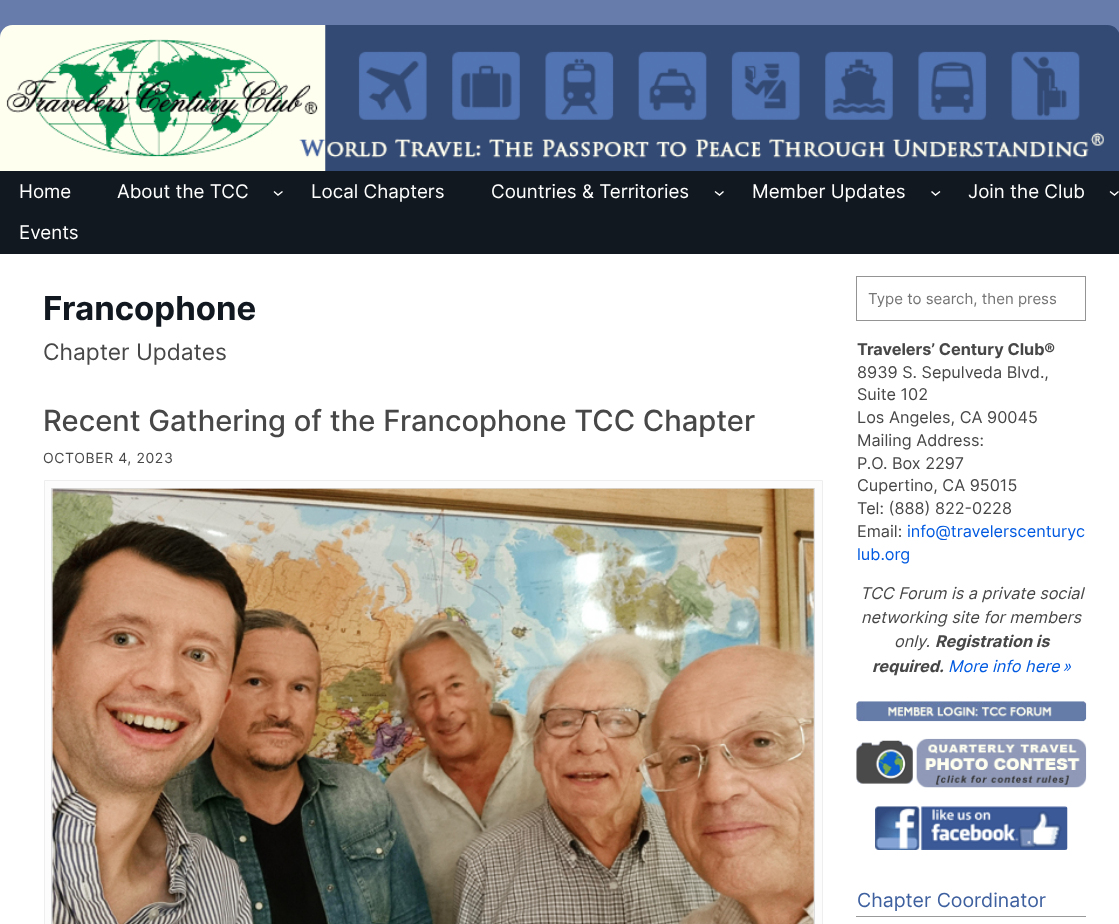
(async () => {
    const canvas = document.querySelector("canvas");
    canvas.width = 1119;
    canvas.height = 924;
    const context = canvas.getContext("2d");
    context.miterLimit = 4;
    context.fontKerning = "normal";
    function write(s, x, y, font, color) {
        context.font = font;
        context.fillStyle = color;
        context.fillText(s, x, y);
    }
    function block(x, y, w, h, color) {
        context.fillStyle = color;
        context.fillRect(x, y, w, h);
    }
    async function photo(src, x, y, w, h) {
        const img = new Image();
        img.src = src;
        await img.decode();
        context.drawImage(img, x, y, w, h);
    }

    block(0, 0, 1119, 924, "rgb(104, 124, 172)");
    await photo("media/1.png", 0, 25, 1119, 146);
    block(0, 171, 1119, 83, "rgb(17, 24, 31)");
    write("Home", 19, 198, "18.75px Inter", "rgb(255, 255, 255)");
    write("About the TCC", 117, 198, "18.75px Inter", "rgb(255, 255, 255)");
    context.beginPath();
    context.moveTo(274, 191.5);
    context.lineTo(278, 195);
    context.lineTo(282.5, 191.5);
    context.strokeStyle = "rgb(255, 255, 255)";
    context.lineWidth = 1.4;
    context.stroke();
    write("Local Chapters", 311, 198, "18.75px Inter", "rgb(255, 255, 255)");
    write("Countries & Territories", 491, 198, "18.75px Inter", "rgb(255, 255, 255)");
    context.beginPath();
    context.moveTo(715, 191.5);
    context.lineTo(719.5, 195);
    context.lineTo(723.5, 191.5);
    context.stroke();
    write("Member Updates", 752, 198, "18.75px Inter", "rgb(255, 255, 255)");
    context.beginPath();
    context.moveTo(931.5, 191.5);
    context.lineTo(935.5, 195);
    context.lineTo(940, 191.5);
    context.stroke();
    write("Join the Club", 968, 198, "18.75px Inter", "rgb(255, 255, 255)");
    context.beginPath();
    context.moveTo(1110, 191.5);
    context.lineTo(1114.5, 195);
    context.lineTo(1118.5, 191.5);
    context.stroke();
    write("Events", 19, 239, "18.75px Inter", "rgb(255, 255, 255)");
    block(0, 254, 1119, 670, "rgb(255, 255, 255)");
    write("Francophone", 43, 320, "bold 33px Inter", "rgb(17, 24, 31)");
    write("Chapter Updates", 43, 360, "22.75px Inter", "rgb(71, 71, 71)");
    write("Recent Gathering of the Francophone TCC Chapter", 43, 431, "500 29.1px Inter", "rgb(71, 71, 71)");
    context.letterSpacing = "0.6px";
    write("OCTOBER 4, 2023", 43, 463, "14px Inter", "rgb(71, 71, 71)");
    context.fillStyle = "rgb(252, 252, 252)";
    context.beginPath();
    context.rect(44.5, 480.5, 778, 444);
    context.fill();
    context.strokeStyle = "rgb(238, 238, 238)";
    context.lineWidth = 1;
    context.stroke();
    context.strokeStyle = "rgb(221, 221, 221)";
    context.strokeRect(51.5, 488.5, 763, 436);
    await photo("media/2.png", 52, 488, 762, 436);
    context.strokeStyle = "rgb(148, 148, 148)";
    context.strokeRect(856.5, 276.5, 229, 44);
    context.letterSpacing = "0px";
    write("Type to search, then press", 868, 304, "15px Inter", "rgb(117, 117, 117)");
    write("Travelers’ Century Club®", 857, 355, "bold 16.25px Inter", "rgb(71, 71, 71)");
    write("8939 S. Sepulveda Blvd.,", 857, 378, "16.25px Inter", "rgb(71, 71, 71)");
    write("Suite 102", 857, 400, "16.25px Inter", "rgb(71, 71, 71)");
    write("Los Angeles, CA 90045", 857, 423, "16.25px Inter", "rgb(71, 71, 71)");
    write("Mailing Address:", 857, 446, "16.25px Inter", "rgb(71, 71, 71)");
    write("P.O. Box 2297", 857, 469, "16.25px Inter", "rgb(71, 71, 71)");
    write("Cupertino, CA 95015", 857, 491, "16.25px Inter", "rgb(71, 71, 71)");
    write("Tel: (888) 822-0228", 857, 514, "16.25px Inter", "rgb(71, 71, 71)");
    write("Email:", 857, 537, "16.25px Inter", "rgb(71, 71, 71)");
    write("info@travelerscenturyc", 907, 537, "16.25px Inter", "rgb(0, 90, 225)");
    write("lub.org", 857, 560, "16.25px Inter", "rgb(0, 90, 225)");
    write("TCC Forum is a private social", 860, 599, "italic 16.25px Inter", "rgb(71, 71, 71)");
    write("networking site for members", 861, 623, "italic 16.25px Inter", "rgb(71, 71, 71)");
    write("only.", 894, 647, "italic 16.25px Inter", "rgb(71, 71, 71)");
    write("Registration is", 935, 647, "italic bold 16.25px Inter", "rgb(71, 71, 71)");
    write("required.", 872, 672, "italic bold 16.25px Inter", "rgb(71, 71, 71)");
    write("More info here »", 948, 672, "italic 16.25px Inter", "rgb(0, 90, 225)");
    await photo("media/3.png", 856, 701, 231, 21);
    await photo("media/4.png", 856, 738, 231, 50);
    await photo("media/5.png", 875, 806, 193, 44);
    write("Chapter Coordinator", 857, 907, "19.5px Inter", "rgb(62, 96, 159)");
    block(856, 916, 230, 1, "rgb(153, 153, 153)");
})();
